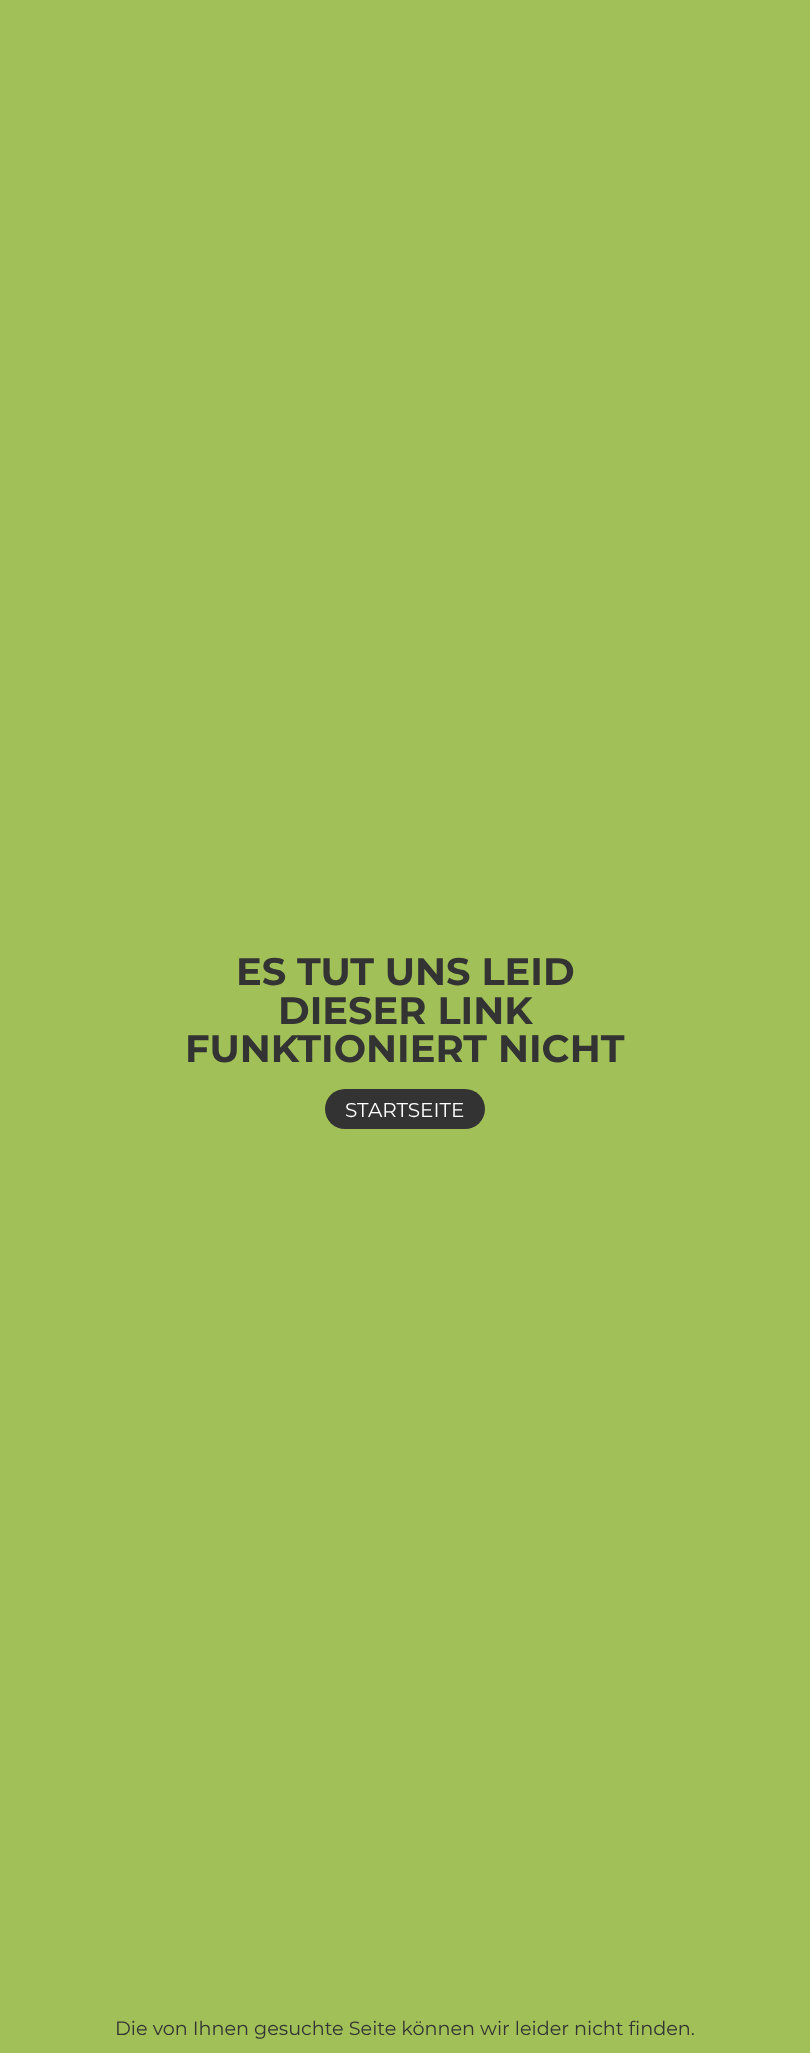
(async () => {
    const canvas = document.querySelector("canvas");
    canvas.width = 810;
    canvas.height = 2053;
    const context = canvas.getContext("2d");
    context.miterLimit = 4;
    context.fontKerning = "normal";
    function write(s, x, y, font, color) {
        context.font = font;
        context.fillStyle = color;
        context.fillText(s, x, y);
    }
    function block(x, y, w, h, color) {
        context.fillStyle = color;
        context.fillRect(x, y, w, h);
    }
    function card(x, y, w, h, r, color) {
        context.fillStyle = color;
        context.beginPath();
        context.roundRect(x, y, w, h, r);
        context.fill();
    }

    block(0, 0, 810, 2053, "rgb(161, 192, 87)");
    write("ES TUT UNS LEID", 236, 985, "100 38.4px Montserrat", "rgb(51, 51, 51)");
    write("DIESER LINK", 278, 1024, "100 38.4px Montserrat", "rgb(51, 51, 51)");
    write("FUNKTIONIERT NICHT", 185, 1062, "100 38.4px Montserrat", "rgb(51, 51, 51)");
    card(325, 1089, 160, 40, 20, "rgb(51, 51, 51)");
    write("STARTSEITE", 345, 1117, "100 20px 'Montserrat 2'", "rgb(255, 255, 255)");
    write("Die von Ihnen gesuchte Seite können wir leider nicht finden.", 115, 2035, "100 19.2px 'Montserrat 2'", "rgb(51, 51, 51)");
})();
